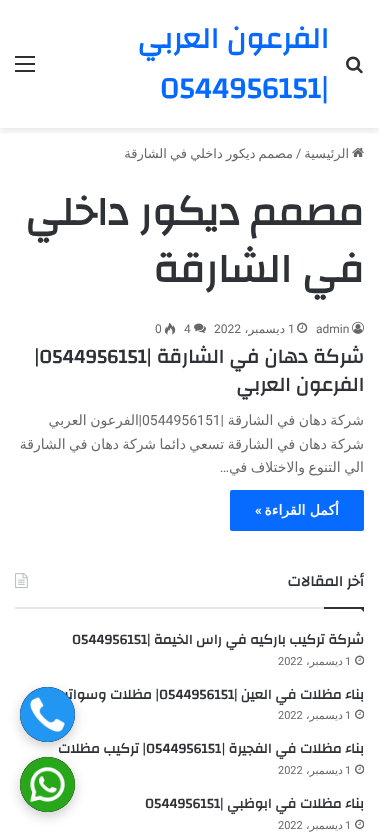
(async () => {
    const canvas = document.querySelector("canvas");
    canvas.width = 379;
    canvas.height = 832;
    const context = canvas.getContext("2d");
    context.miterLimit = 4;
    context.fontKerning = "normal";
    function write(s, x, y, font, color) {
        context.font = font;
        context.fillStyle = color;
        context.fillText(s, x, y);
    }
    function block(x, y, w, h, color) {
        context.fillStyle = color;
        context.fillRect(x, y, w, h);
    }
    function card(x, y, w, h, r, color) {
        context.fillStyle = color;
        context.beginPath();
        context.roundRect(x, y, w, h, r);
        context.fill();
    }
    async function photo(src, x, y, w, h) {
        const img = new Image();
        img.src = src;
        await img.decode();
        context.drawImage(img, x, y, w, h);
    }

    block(0, 0, 379, 832, "rgb(255, 255, 255)");
    context.save();
    context.beginPath();
    context.rect(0, 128, 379, 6);
    context.clip();
    context.fillStyle = "rgba(0, 0, 0, 0.1)";
    context.filter = "blur(3.5px)";
    context.beginPath();
    context.rect(0, 3, 379, 128);
    context.fill();
    context.filter = "none";
    context.restore();
    await photo("media/1.png", 346, 56, 17, 18);
    context.direction = "rtl";
    write("الفرعون العربي", 329, 48, "bold 30px Changa", "rgb(6, 105, 255)");
    context.direction = "ltr";
    write("0544956151|", 160, 98, "bold 30px Changa", "rgb(6, 105, 255)");
    block(15, 63, 20, 2, "rgb(44, 47, 52)");
    block(15, 56, 20, 2, "rgb(44, 47, 52)");
    block(15, 70, 20, 2, "rgb(44, 47, 52)");
    await photo("media/2.png", 352, 147, 12, 11);
    context.direction = "rtl";
    write("الرئيسية", 349, 158, "13px DejaVu Sans", "rgb(104, 104, 104)");
    context.direction = "ltr";
    write("/", 296, 158, "13px Roboto", "rgb(104, 104, 104)");
    context.wordSpacing = "-1px";
    context.direction = "rtl";
    write("مصمم ديكور داخلي في الشارقة", 293, 158, "13px DejaVu Sans", "rgb(104, 104, 104)");
    context.wordSpacing = "0px";
    write("مصمم ديكور داخلي", 364, 225, "bold 41px Changa", "rgb(46, 49, 54)");
    write("في الشارقة", 364, 282, "bold 41px Changa", "rgb(46, 49, 54)");
    await photo("media/3.png", 352, 321, 12, 13);
    context.direction = "ltr";
    write("admin", 316, 333, "12px Roboto", "rgb(104, 104, 104)");
    await photo("media/4.png", 297, 322, 11, 11);
    write("1", 288, 333, "12px Roboto", "rgb(104, 104, 104)");
    context.direction = "rtl";
    write("ديسمبر،", 285, 333, "12px DejaVu Sans", "rgb(104, 104, 104)");
    context.direction = "ltr";
    write("2022", 214, 333, "12px Roboto", "rgb(104, 104, 104)");
    await photo("media/5.png", 194, 323, 12, 10);
    write("4", 184, 333, "12px Roboto", "rgb(104, 104, 104)");
    await photo("media/6.png", 164, 322, 12, 13);
    write("0", 155, 333, "12px Roboto", "rgb(104, 104, 104)");
    context.direction = "rtl";
    write("شركة دهان في الشارقة |", 364, 363, "bold 20px Changa", "rgb(46, 49, 54)");
    context.direction = "ltr";
    write("|0544956151", 34, 363, "bold 20px Changa", "rgb(46, 49, 54)");
    context.direction = "rtl";
    write("الفرعون العربي", 364, 391, "bold 20px Changa", "rgb(46, 49, 54)");
    context.wordSpacing = "-1px";
    write("شركة دهان في الشارقة", 364, 425, "14px DejaVu Sans", "rgb(104, 104, 104)");
    context.wordSpacing = "0px";
    write("|", 224, 425, "14px Roboto", "rgb(104, 104, 104)");
    context.direction = "ltr";
    write("0544956151", 142, 425, "14px Roboto", "rgb(104, 104, 104)");
    context.direction = "rtl";
    write("|", 142, 425, "14px Roboto", "rgb(104, 104, 104)");
    context.wordSpacing = "-1px";
    write("الفرعون العربي", 139, 425, "14px DejaVu Sans", "rgb(104, 104, 104)");
    write("شركة دهان في الشارقة تسعي دائما شركة دهان في الشارقة", 364, 449, "14px DejaVu Sans", "rgb(104, 104, 104)");
    write("الي التنوع والاختلاف في", 364, 472, "14px DejaVu Sans", "rgb(104, 104, 104)");
    context.wordSpacing = "0px";
    write("…", 229, 472, "14px Roboto", "rgb(104, 104, 104)");
    card(230, 490, 134, 41, 2, "rgb(8, 107, 255)");
    write("أكمل القراءة", 339, 515, "bold 14px DejaVu Sans", "rgb(255, 255, 255)");
    write("»", 262, 515, "600 14px Roboto", "rgb(255, 255, 255)");
    block(15, 607, 309, 2, "rgb(230, 230, 230)");
    write("أخر المقالات", 364, 586, "bold 15px Changa", "rgb(46, 49, 54)");
    await photo("media/7.png", 15, 573, 13, 16);
    context.beginPath();
    context.moveTo(359, 607);
    context.lineTo(364, 607);
    context.lineTo(364, 612);
    context.closePath();
    context.fill();
    block(324, 607, 40, 2, "rgb(46, 49, 54)");
    write("شركة تركيب باركيه في راس الخيمة |", 364, 644, "bold 14px Changa", "rgb(46, 49, 54)");
    context.direction = "ltr";
    write("0544956151", 72, 644, "bold 14px Changa", "rgb(46, 49, 54)");
    await photo("media/8.png", 355, 655, 9, 10);
    write("1", 345, 665, "11px Roboto", "rgb(104, 104, 104)");
    context.direction = "rtl";
    write("ديسمبر،", 343, 665, "11px DejaVu Sans", "rgb(104, 104, 104)");
    context.direction = "ltr";
    write("2022", 278, 665, "11px Roboto", "rgb(104, 104, 104)");
    context.direction = "rtl";
    write("بناء مظلات في العين |", 364, 699, "bold 14px Changa", "rgb(46, 49, 54)");
    context.direction = "ltr";
    write("0544956151", 159, 699, "bold 14px Changa", "rgb(46, 49, 54)");
    context.direction = "rtl";
    write("| مظلات وسواتر", 159, 699, "bold 14px Changa", "rgb(46, 49, 54)");
    await photo("media/8.png", 355, 709, 9, 10);
    context.direction = "ltr";
    write("1", 345, 719, "11px Roboto", "rgb(104, 104, 104)");
    context.direction = "rtl";
    write("ديسمبر،", 343, 719, "11px DejaVu Sans", "rgb(104, 104, 104)");
    context.direction = "ltr";
    write("2022", 278, 719, "11px Roboto", "rgb(104, 104, 104)");
    context.direction = "rtl";
    write("بناء مظلات في الفجيرة |", 364, 753, "bold 14px Changa", "rgb(46, 49, 54)");
    context.direction = "ltr";
    write("0544956151", 146, 753, "bold 14px Changa", "rgb(46, 49, 54)");
    context.direction = "rtl";
    write("| تركيب مظلات", 146, 753, "bold 14px Changa", "rgb(46, 49, 54)");
    await photo("media/8.png", 355, 764, 9, 10);
    context.direction = "ltr";
    write("1", 345, 774, "11px Roboto", "rgb(104, 104, 104)");
    context.direction = "rtl";
    write("ديسمبر،", 343, 774, "11px DejaVu Sans", "rgb(104, 104, 104)");
    context.direction = "ltr";
    write("2022", 278, 774, "11px Roboto", "rgb(104, 104, 104)");
    context.direction = "rtl";
    write("بناء مظلات في ابوظبي |", 364, 808, "bold 14px Changa", "rgb(46, 49, 54)");
    context.direction = "ltr";
    write("0544956151", 145, 808, "bold 14px Changa", "rgb(46, 49, 54)");
    await photo("media/8.png", 355, 819, 9, 10);
    write("1", 345, 829, "11px Roboto", "rgb(104, 104, 104)");
    context.direction = "rtl";
    write("ديسمبر،", 343, 829, "11px DejaVu Sans", "rgb(104, 104, 104)");
    context.direction = "ltr";
    write("2022", 278, 829, "11px Roboto", "rgb(104, 104, 104)");
    context.fillStyle = "rgba(0, 0, 0, 0.2)";
    context.filter = "blur(6px)";
    context.beginPath();
    context.roundRect(20, 691, 55, 55, 27.5);
    context.fill();
    context.filter = "none";
    context.fillStyle = "rgb(0, 0, 0)";
    context.beginPath();
    context.arc(47.5, 714.5, 27.5, 0, Math.PI * 2);
    context.fill();
    await photo("media/9.png", 20, 687, 55, 55);
    context.fillStyle = "rgba(0, 0, 0, 0.2)";
    context.filter = "blur(6px)";
    context.beginPath();
    context.roundRect(20, 761, 55, 55, 27.5);
    context.fill();
    context.filter = "none";
    context.fillStyle = "rgb(0, 0, 0)";
    context.beginPath();
    context.arc(47.5, 784.5, 27.5, 0, Math.PI * 2);
    context.fill();
    await photo("media/10.png", 20, 757, 55, 55);
})();
